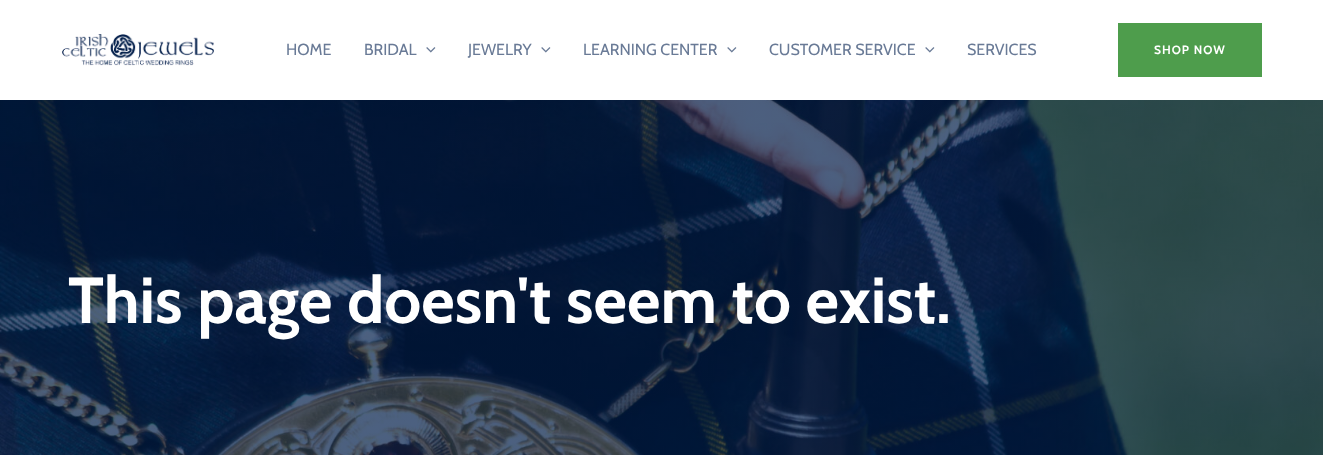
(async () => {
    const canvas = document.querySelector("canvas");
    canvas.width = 1323;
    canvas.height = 455;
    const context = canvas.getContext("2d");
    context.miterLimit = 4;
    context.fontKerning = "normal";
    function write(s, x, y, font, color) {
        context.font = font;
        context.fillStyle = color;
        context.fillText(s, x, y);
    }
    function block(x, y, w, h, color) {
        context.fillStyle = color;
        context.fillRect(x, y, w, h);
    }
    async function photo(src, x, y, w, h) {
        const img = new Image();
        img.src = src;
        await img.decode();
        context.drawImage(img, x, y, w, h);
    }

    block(0, 0, 1323, 455, "rgb(255, 255, 255)");
    await photo("media/1.png", 62, 34, 152, 32);
    write("HOME", 286, 55, "16px Cabin", "rgb(105, 122, 150)");
    write("BRIDAL", 364, 55, "16px Cabin", "rgb(105, 122, 150)");
    await photo("media/2.png", 426, 47, 10, 6);
    write("JEWELRY", 468, 55, "16px Cabin", "rgb(105, 122, 150)");
    await photo("media/2.png", 541, 47, 10, 6);
    write("LEARNING CENTER", 583, 55, "16px Cabin", "rgb(105, 122, 150)");
    await photo("media/2.png", 727, 47, 10, 6);
    write("CUSTOMER SERVICE", 769, 55, "16px Cabin", "rgb(105, 122, 150)");
    await photo("media/2.png", 925, 47, 10, 6);
    write("SERVICES", 967, 55, "16px Cabin", "rgb(105, 122, 150)");
    block(1118, 23, 144, 54, "rgb(78, 157, 76)");
    context.letterSpacing = "1px";
    write("SHOP NOW", 1154, 54, "bold 12px Cabin", "rgb(255, 255, 255)");
    await photo("media/3.png", 0, 100, 1323, 355);
    context.letterSpacing = "0px";
    write("This page doesn't seem to exist.", 68, 323, "bold 65px Cabin", "rgb(255, 255, 255)");
})();
